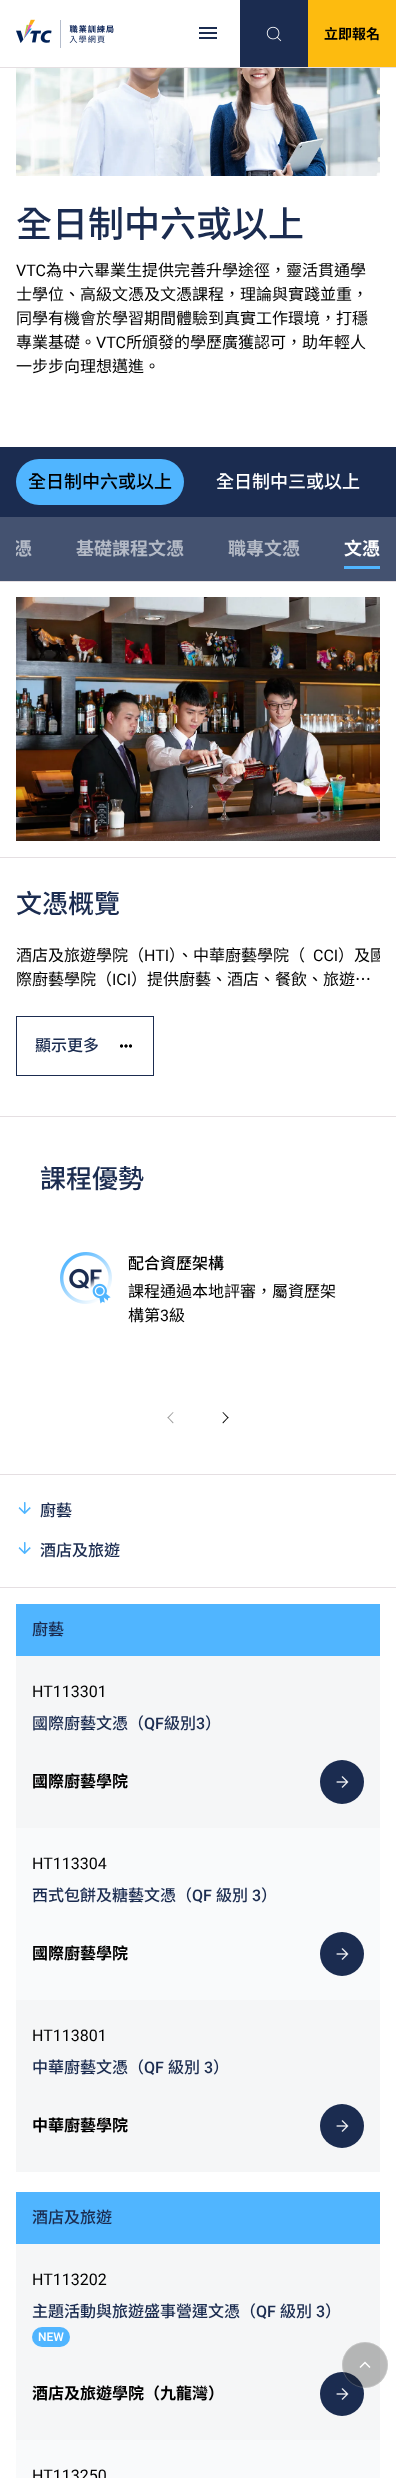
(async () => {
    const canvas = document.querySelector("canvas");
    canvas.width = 396;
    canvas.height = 2478;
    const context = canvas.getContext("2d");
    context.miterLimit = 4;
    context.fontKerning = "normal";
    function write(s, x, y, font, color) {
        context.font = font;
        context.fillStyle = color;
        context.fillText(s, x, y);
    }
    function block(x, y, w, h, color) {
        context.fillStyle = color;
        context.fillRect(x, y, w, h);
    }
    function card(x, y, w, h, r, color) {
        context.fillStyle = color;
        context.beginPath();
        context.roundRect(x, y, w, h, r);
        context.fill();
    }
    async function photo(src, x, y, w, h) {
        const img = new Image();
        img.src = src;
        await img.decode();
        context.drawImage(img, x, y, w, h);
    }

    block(0, 0, 396, 2478, "rgb(255, 255, 255)");
    await photo("media/1.png", 16, 19, 98, 29);
    await photo("media/2.png", 199, 27, 18, 12);
    block(240, 0, 68, 67, "rgb(27, 44, 80)");
    await photo("media/3.png", 266, 26, 16, 16);
    block(308, 0, 88, 67, "rgb(253, 187, 15)");
    write("立即報名", 324, 39, "bold 14px Noto Sans HK", "rgb(0, 0, 0)");
    block(0, 67, 396, 1, "rgb(229, 223, 226)");
    await photo("media/4.png", 16, 68, 364, 108);
    write("全日制中六或以上", 16, 237, "500 36px Noto Sans HK", "rgb(27, 44, 80)");
    write("VTC", 16, 276, "16px Roboto", "rgb(0, 0, 0)");
    write("為中六畢業生提供完善升學途徑，靈活貫通學", 46, 276, "16px Noto Sans HK", "rgb(0, 0, 0)");
    write("士學位、高級文憑及文憑課程，理論與實踐並重，", 16, 300, "16px Noto Sans HK", "rgb(0, 0, 0)");
    write("同學有機會於學習期間體驗到真實工作環境，打穩", 16, 324, "16px Noto Sans HK", "rgb(0, 0, 0)");
    write("專業基礎。", 16, 348, "16px Noto Sans HK", "rgb(0, 0, 0)");
    write("VTC", 96, 348, "16px Roboto", "rgb(0, 0, 0)");
    write("所頒發的學歷廣獲認可，助年輕人", 126, 348, "16px Noto Sans HK", "rgb(0, 0, 0)");
    write("一步步向理想邁進。", 16, 372, "16px Noto Sans HK", "rgb(0, 0, 0)");
    block(0, 447, 396, 70, "rgb(27, 44, 80)");
    card(16, 459, 168, 46, 23, "rgb(80, 181, 255)");
    write("全日制中六或以上", 28, 488, "500 18px Noto Sans HK", "rgb(0, 0, 0)");
    write("全日制中三或以上", 216, 488, "500 18px Noto Sans HK", "rgb(255, 255, 255)");
    block(0, 517, 396, 64, "rgb(68, 82, 112)");
    context.save();
    context.beginPath();
    context.rect(16, 517, 364, 64);
    context.clip();
    write("憑", 14, 555, "bold 18px Noto Sans HK", "rgb(180, 186, 198)");
    context.restore();
    write("基礎課程文憑", 76, 555, "bold 18px Noto Sans HK", "rgb(180, 186, 198)");
    write("職專文憑", 228, 555, "bold 18px Noto Sans HK", "rgb(180, 186, 198)");
    write("文憑", 344, 555, "bold 18px Noto Sans HK", "rgb(255, 255, 255)");
    block(344, 566, 36, 3, "rgb(80, 181, 255)");
    block(0, 581, 396, 1, "rgb(229, 223, 226)");
    await photo("media/5.png", 16, 597, 364, 244);
    block(0, 857, 396, 1, "rgb(229, 223, 226)");
    write("文憑概覽", 16, 913, "500 26px Noto Sans HK", "rgb(27, 44, 80)");
    write("酒店及旅遊學院（", 16, 961, "16px Noto Sans HK", "rgb(0, 0, 0)");
    write("HTI", 144, 961, "16px Roboto", "rgb(0, 0, 0)");
    write("）、中華廚藝學院（", 169, 961, "16px Noto Sans HK", "rgb(0, 0, 0)");
    write("CCI", 313, 961, "16px Roboto", "rgb(0, 0, 0)");
    context.save();
    context.beginPath();
    context.rect(16, 944, 364, 48);
    context.clip();
    write("）及國", 338, 961, "16px Noto Sans HK", "rgb(0, 0, 0)");
    context.restore();
    write("際廚藝學院（", 16, 985, "16px Noto Sans HK", "rgb(0, 0, 0)");
    write("ICI", 112, 985, "16px Roboto", "rgb(0, 0, 0)");
    write("）提供廚藝、酒店、餐飲、旅遊…", 131, 985, "16px Noto Sans HK", "rgb(0, 0, 0)");
    context.strokeStyle = "rgb(27, 44, 80)";
    context.strokeRect(16.5, 1016.5, 137, 59);
    write("顯示更多", 35, 1051, "500 16px Noto Sans HK", "rgb(27, 44, 80)");
    await photo("media/6.png", 120, 1044, 12, 4);
    await photo("media/7.png", 120, 1044, 12, 4);
    block(0, 1116, 396, 1, "rgb(229, 223, 226)");
    write("課程優勢", 40, 1188, "500 26px Noto Sans HK", "rgb(27, 44, 80)");
    await photo("media/8.png", 60, 1252, 52, 52);
    write("配合資歷架構", 128, 1269, "500 16px Noto Sans HK", "rgb(0, 0, 0)");
    write("課程通過本地評審，屬資歷架", 128, 1297, "16px Noto Sans HK", "rgb(0, 0, 0)");
    write("構第", 128, 1321, "16px Noto Sans HK", "rgb(0, 0, 0)");
    write("3", 160, 1321, "16px Roboto", "rgb(0, 0, 0)");
    write("級", 169, 1321, "16px Noto Sans HK", "rgb(0, 0, 0)");
    context.fillStyle = "rgb(153, 153, 153)";
    context.beginPath();
    context.moveTo(173, 1423.5);
    context.lineTo(167.5, 1417.5);
    context.lineTo(168, 1417);
    context.lineTo(173.5, 1422.5);
    context.closePath();
    context.fill();
    context.beginPath();
    context.moveTo(168, 1418.5);
    context.lineTo(167.5, 1417.5);
    context.lineTo(173, 1412);
    context.lineTo(173.5, 1412.5);
    context.closePath();
    context.fill();
    context.fillStyle = "rgb(0, 0, 0)";
    context.beginPath();
    context.moveTo(223, 1412);
    context.lineTo(228.5, 1417.5);
    context.lineTo(228, 1418.5);
    context.lineTo(222.5, 1412.5);
    context.closePath();
    context.fill();
    context.beginPath();
    context.moveTo(228, 1417);
    context.lineTo(228.5, 1417.5);
    context.lineTo(223, 1423.5);
    context.lineTo(222.5, 1422.5);
    context.closePath();
    context.fill();
    block(0, 1474, 396, 1, "rgb(229, 223, 226)");
    await photo("media/9.png", 18, 1502, 13, 12);
    await photo("media/10.png", 18, 1502, 13, 12);
    write("廚藝", 40, 1516, "500 16px Noto Sans HK", "rgb(27, 44, 80)");
    await photo("media/9.png", 18, 1542, 13, 12);
    await photo("media/10.png", 18, 1542, 13, 12);
    write("酒店及旅遊", 40, 1556, "500 16px Noto Sans HK", "rgb(27, 44, 80)");
    block(0, 1587, 396, 1, "rgb(229, 223, 226)");
    block(16, 1604, 364, 52, "rgb(80, 181, 255)");
    write("廚藝", 32, 1635, "500 16px Noto Sans HK", "rgb(27, 44, 80)");
    block(16, 1656, 364, 172, "rgb(245, 246, 247)");
    write("HT113301", 32, 1697, "16px Roboto", "rgb(0, 0, 0)");
    write("國際廚藝文憑（", 32, 1729, "500 16px Noto Sans HK", "rgb(27, 44, 80)");
    write("QF", 144, 1729, "500 16px Roboto", "rgb(27, 44, 80)");
    write("級別", 164, 1729, "500 16px Noto Sans HK", "rgb(27, 44, 80)");
    write("3", 196, 1729, "500 16px Roboto", "rgb(27, 44, 80)");
    write("）", 205, 1729, "500 16px Noto Sans HK", "rgb(27, 44, 80)");
    write("國際廚藝學院", 32, 1787, "bold 16px Noto Sans HK", "rgb(0, 0, 0)");
    context.fillStyle = "rgb(27, 44, 80)";
    context.beginPath();
    context.arc(342, 1782, 22, 0, Math.PI * 2);
    context.fill();
    await photo("media/11.png", 336, 1776, 13, 12);
    block(16, 1828, 364, 172, "rgb(249, 250, 251)");
    write("HT113304", 32, 1869, "16px Roboto", "rgb(0, 0, 0)");
    write("西式包餅及糖藝文憑（", 32, 1901, "500 16px Noto Sans HK", "rgb(27, 44, 80)");
    write("QF", 192, 1901, "500 16px Roboto", "rgb(27, 44, 80)");
    write("級別", 216, 1901, "500 16px Noto Sans HK", "rgb(27, 44, 80)");
    write("3", 252, 1901, "500 16px Roboto", "rgb(27, 44, 80)");
    write("）", 261, 1901, "500 16px Noto Sans HK", "rgb(27, 44, 80)");
    write("國際廚藝學院", 32, 1959, "bold 16px Noto Sans HK", "rgb(0, 0, 0)");
    context.fillStyle = "rgb(27, 44, 80)";
    context.beginPath();
    context.arc(342, 1954, 22, 0, Math.PI * 2);
    context.fill();
    await photo("media/11.png", 336, 1948, 13, 12);
    block(16, 2000, 364, 172, "rgb(245, 246, 247)");
    write("HT113801", 32, 2041, "16px Roboto", "rgb(0, 0, 0)");
    write("中華廚藝文憑（", 32, 2073, "500 16px Noto Sans HK", "rgb(27, 44, 80)");
    write("QF", 144, 2073, "500 16px Roboto", "rgb(27, 44, 80)");
    write("級別", 168, 2073, "500 16px Noto Sans HK", "rgb(27, 44, 80)");
    write("3", 204, 2073, "500 16px Roboto", "rgb(27, 44, 80)");
    write("）", 213, 2073, "500 16px Noto Sans HK", "rgb(27, 44, 80)");
    write("中華廚藝學院", 32, 2131, "bold 16px Noto Sans HK", "rgb(0, 0, 0)");
    context.fillStyle = "rgb(27, 44, 80)";
    context.beginPath();
    context.arc(342, 2126, 22, 0, Math.PI * 2);
    context.fill();
    await photo("media/11.png", 336, 2120, 13, 12);
    block(16, 2192, 364, 52, "rgb(80, 181, 255)");
    write("酒店及旅遊", 32, 2223, "500 16px Noto Sans HK", "rgb(27, 44, 80)");
    block(16, 2244, 364, 196, "rgb(245, 246, 247)");
    write("HT113202", 32, 2285, "16px Roboto", "rgb(0, 0, 0)");
    write("主題活動與旅遊盛事營運文憑（", 32, 2317, "500 16px Noto Sans HK", "rgb(27, 44, 80)");
    write("QF", 256, 2317, "500 16px Roboto", "rgb(27, 44, 80)");
    write("級別", 280, 2317, "500 16px Noto Sans HK", "rgb(27, 44, 80)");
    write("3", 316, 2317, "500 16px Roboto", "rgb(27, 44, 80)");
    write("）", 325, 2317, "500 16px Noto Sans HK", "rgb(27, 44, 80)");
    card(32, 2327, 38, 20, 10, "rgb(80, 181, 255)");
    write("NEW", 38, 2341, "500 12px Roboto", "rgb(255, 255, 255)");
    write("酒店及旅遊學院（九龍灣）", 32, 2399, "bold 16px Noto Sans HK", "rgb(0, 0, 0)");
    context.fillStyle = "rgb(27, 44, 80)";
    context.beginPath();
    context.arc(342, 2394, 22, 0, Math.PI * 2);
    context.fill();
    await photo("media/11.png", 336, 2388, 13, 12);
    block(16, 2440, 364, 38, "rgb(249, 250, 251)");
    write("HT113250", 32, 2481, "16px Roboto", "rgb(0, 0, 0)");
    context.fillStyle = "rgba(30, 30, 30, 0.3)";
    context.beginPath();
    context.arc(365, 2365, 23, 0, Math.PI * 2);
    context.fill();
    context.beginPath();
    context.arc(365, 2365, 22.5, 0, Math.PI * 2);
    context.strokeStyle = "rgba(255, 255, 255, 0.2)";
    context.stroke();
    context.beginPath();
    context.moveTo(370, 2367.5);
    context.lineTo(365, 2362.5);
    context.lineTo(360, 2367.5);
    context.strokeStyle = "rgb(255, 255, 255)";
    context.lineWidth = 1.5;
    context.stroke();
})();
